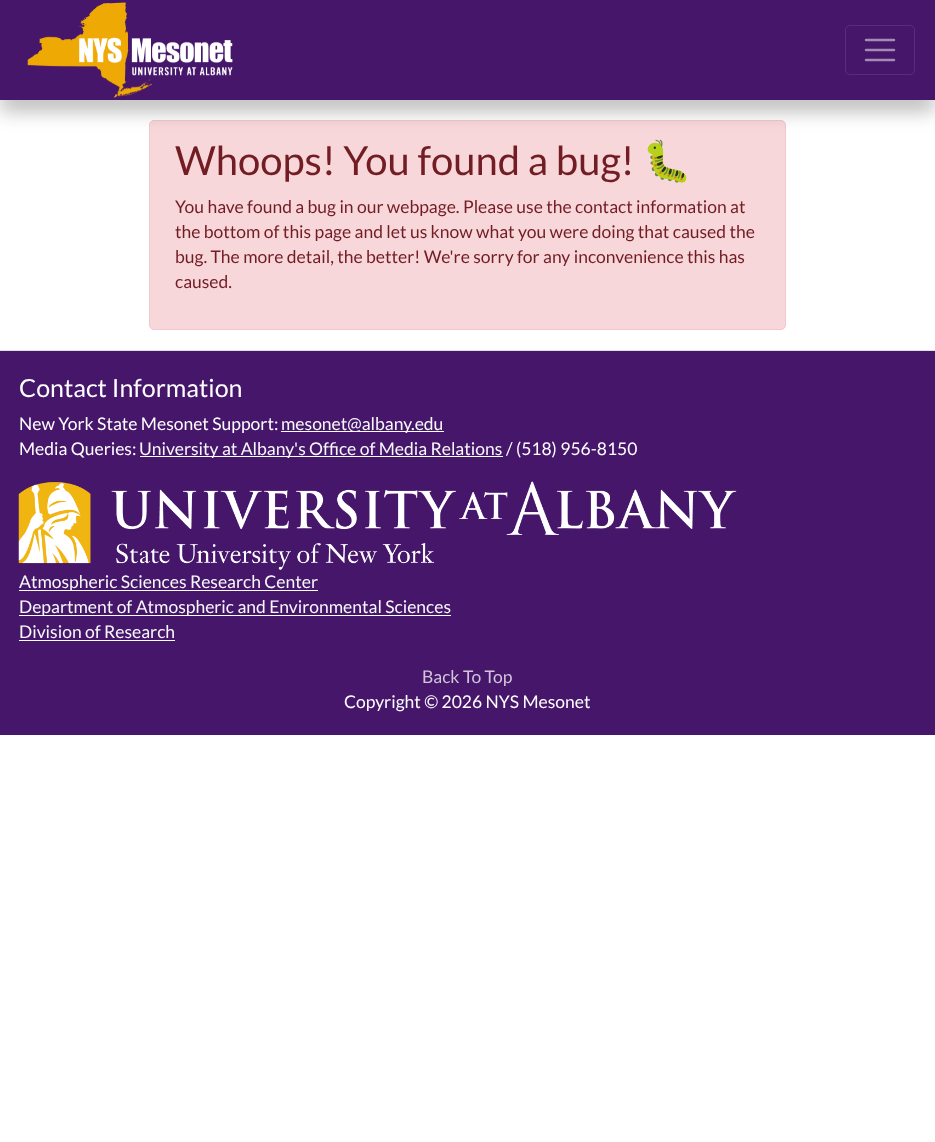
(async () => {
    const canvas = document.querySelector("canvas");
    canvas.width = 935;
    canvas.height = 1142;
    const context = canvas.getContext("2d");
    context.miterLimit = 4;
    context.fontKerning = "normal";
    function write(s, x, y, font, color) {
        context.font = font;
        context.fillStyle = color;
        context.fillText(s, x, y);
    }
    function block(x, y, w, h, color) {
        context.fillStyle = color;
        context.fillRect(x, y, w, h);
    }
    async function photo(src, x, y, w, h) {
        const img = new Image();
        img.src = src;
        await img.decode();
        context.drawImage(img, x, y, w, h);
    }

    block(0, 0, 935, 1142, "rgb(255, 255, 255)");
    context.fillStyle = "rgb(248, 215, 218)";
    context.beginPath();
    context.roundRect(149.5, 120.5, 636, 209, 4.5);
    context.fill();
    context.strokeStyle = "rgb(245, 198, 203)";
    context.stroke();
    context.fillStyle = "rgba(0, 0, 0, 0.3)";
    context.filter = "blur(10px)";
    context.beginPath();
    context.rect(0, 90, 935, 20);
    context.fill();
    context.filter = "none";
    block(0, 0, 935, 100, "rgb(70, 22, 107)");
    await photo("media/1.png", 27, 2, 206, 96);
    context.beginPath();
    context.roundRect(845.5, 25.5, 69, 49, 4.5);
    context.strokeStyle = "rgb(89, 45, 122)";
    context.stroke();
    context.beginPath();
    context.moveTo(866, 40);
    context.lineTo(894, 40);
    context.moveTo(866, 50);
    context.lineTo(894, 50);
    context.moveTo(866, 60);
    context.lineTo(894, 60);
    context.strokeStyle = "rgb(163, 139, 181)";
    context.lineWidth = 2.5;
    context.lineCap = "round";
    context.stroke();
    write("Whoops! You found a bug!", 175, 175, "40px Lato", "rgb(114, 28, 36)");
    write("🐛", 642, 175, "40px Noto Color Emoji", "rgb(114, 28, 36)");
    write("You have found a bug in our webpage. Please use the contact information at", 175, 213, "17.5px Lato", "rgb(114, 28, 36)");
    write("the bottom of this page and let us know what you were doing that caused the", 175, 238, "17.5px Lato", "rgb(114, 28, 36)");
    write("bug. The more detail, the better! We're sorry for any inconvenience this has", 175, 263, "17.5px Lato", "rgb(114, 28, 36)");
    write("caused.", 175, 288, "17.5px Lato", "rgb(114, 28, 36)");
    block(0, 351, 935, 384, "rgb(70, 22, 107)");
    block(0, 350, 935, 1, "rgb(222, 226, 230)");
    write("Contact Information", 19, 397, "25px Lato", "rgb(255, 255, 255)");
    write("New York State Mesonet Support:", 19, 430, "17.5px Lato", "rgb(255, 255, 255)");
    block(281, 431, 163, 1, "rgb(255, 255, 255)");
    write("mesonet@albany.edu", 281, 430, "17.5px Lato", "rgb(248, 249, 250)");
    write("Media Queries:", 19, 455, "17.5px Lato", "rgb(255, 255, 255)");
    block(140, 456, 363, 1, "rgb(255, 255, 255)");
    write("University at Albany's Office of Media Relations", 139, 455, "17.5px Lato", "rgb(248, 249, 250)");
    write("/ (518) 956-8150", 506, 455, "17.5px Lato", "rgb(255, 255, 255)");
    await photo("media/2.png", 18, 481, 719, 89);
    block(19, 590, 299, 1, "rgb(255, 255, 255)");
    write("Atmospheric Sciences Research Center", 19, 588, "17.5px Lato", "rgb(248, 249, 250)");
    block(19, 615, 432, 1, "rgb(255, 255, 255)");
    write("Department of Atmospheric and Environmental Sciences", 19, 613, "17.5px Lato", "rgb(248, 249, 250)");
    write("Division of Research", 19, 638, "17.5px Lato", "rgb(248, 249, 250)");
    block(19, 640, 156, 1, "rgb(255, 255, 255)");
    write("Back To Top", 422, 683, "17.5px Lato", "rgb(209, 197, 218)");
    write("Copyright © 2026 NYS Mesonet", 344, 708, "17.5px Lato", "rgb(255, 255, 255)");
})();
